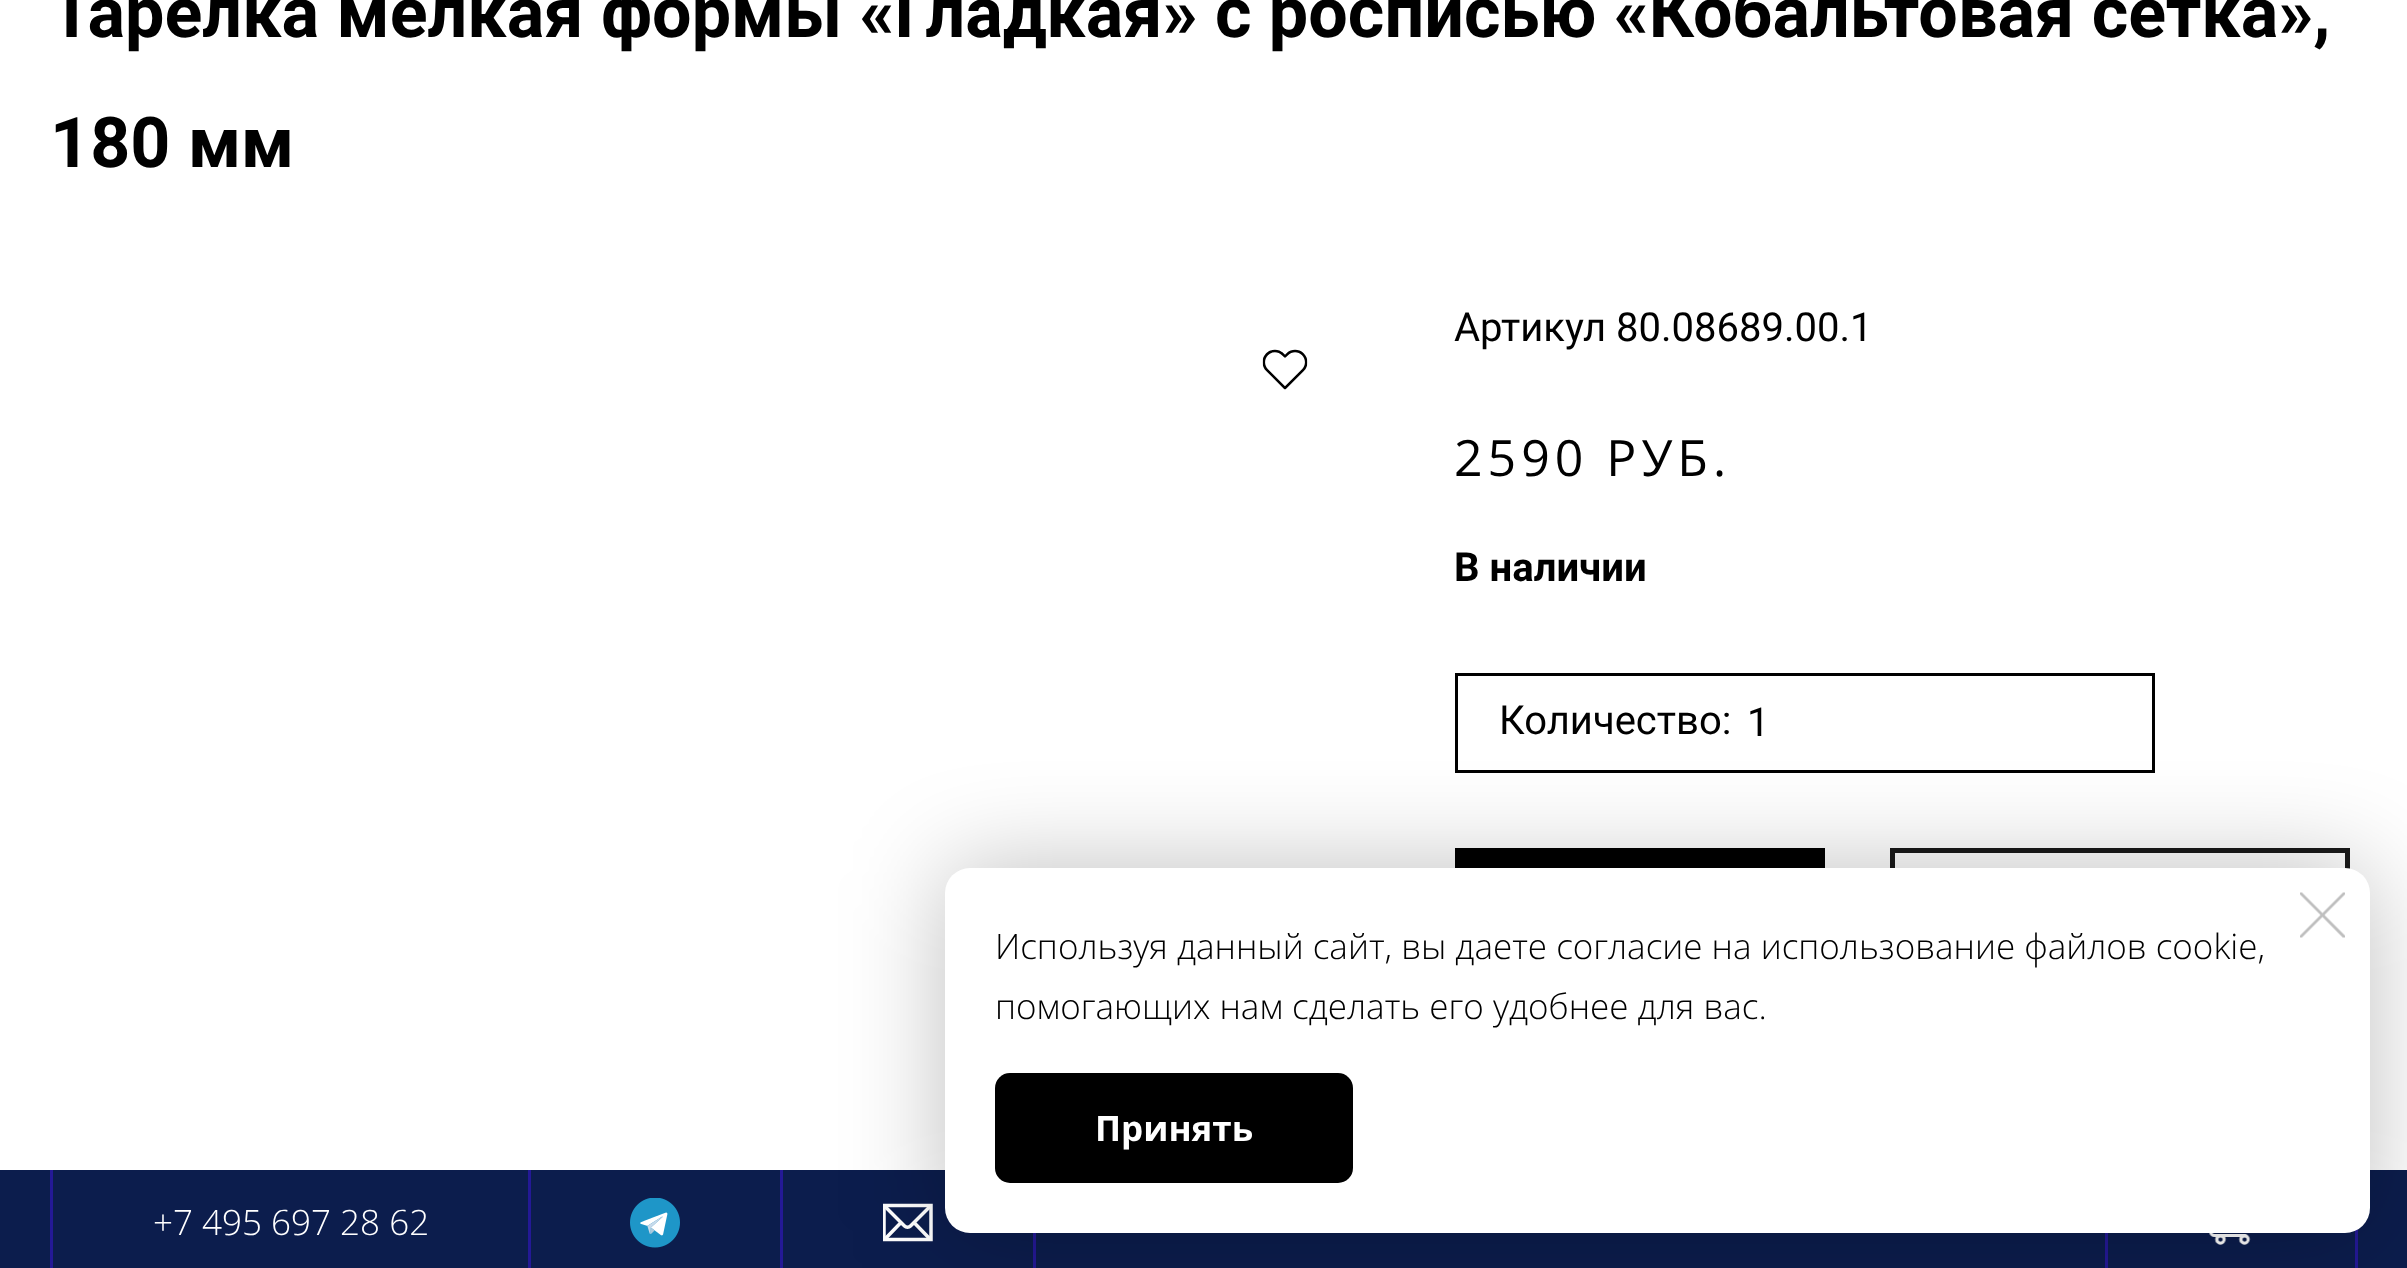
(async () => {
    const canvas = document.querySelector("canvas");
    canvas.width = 2407;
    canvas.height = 1268;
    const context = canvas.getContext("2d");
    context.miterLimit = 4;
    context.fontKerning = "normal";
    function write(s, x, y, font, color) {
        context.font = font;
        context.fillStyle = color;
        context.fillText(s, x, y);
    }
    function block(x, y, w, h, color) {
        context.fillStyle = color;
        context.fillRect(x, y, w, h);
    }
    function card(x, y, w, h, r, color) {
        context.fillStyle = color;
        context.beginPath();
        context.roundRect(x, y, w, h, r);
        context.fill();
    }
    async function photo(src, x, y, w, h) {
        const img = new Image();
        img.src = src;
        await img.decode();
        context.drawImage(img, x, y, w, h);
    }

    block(0, 0, 2407, 1268, "rgb(255, 255, 255)");
    write("Тарелка мелкая формы «Гладкая» с росписью «Кобальтовая сетка»,", 50, 37, "bold 70px Roboto", "rgb(0, 0, 0)");
    write("180 мм", 50, 167, "bold 70px Roboto", "rgb(0, 0, 0)");
    await photo("media/1.png", 1262, 349, 46, 41);
    write("Артикул", 1454, 341, "40px Roboto", "rgb(0, 0, 0)");
    write("80.08689.00.1", 1616, 341, "40px Roboto", "rgb(0, 0, 0)");
    context.letterSpacing = "5px";
    write("2590 РУБ.", 1454, 476, "50px Open Sans", "rgb(0, 0, 0)");
    context.letterSpacing = "0px";
    write("В наличии", 1454, 581, "bold 40px Roboto", "rgb(0, 0, 0)");
    context.strokeStyle = "rgb(0, 0, 0)";
    context.lineWidth = 3;
    context.strokeRect(1456.5, 674.5, 697, 97);
    write("Количество:", 1499, 734, "40px Roboto", "rgb(0, 0, 0)");
    write("1", 1747, 736, "40px Roboto", "rgb(0, 0, 0)");
    block(1455, 848, 370, 20, "rgb(0, 0, 0)");
    context.strokeStyle = "rgb(26, 26, 26)";
    context.lineWidth = 5;
    context.strokeRect(1892.5, 850.5, 455, 100);
    block(0, 1170, 2407, 98, "rgb(12, 29, 77)");
    block(1033, 1233, 3, 35, "rgb(36, 25, 150)");
    context.save();
    context.beginPath();
    context.rect(883, 1203, 50, 40);
    context.clip();
    context.beginPath();
    context.moveTo(931, 1239.5);
    context.lineTo(931, 1205.5);
    context.lineTo(884, 1205.5);
    context.lineTo(884, 1239.5);
    context.closePath();
    context.strokeStyle = "rgb(255, 255, 255)";
    context.lineWidth = 3.5;
    context.stroke();
    context.restore();
    context.beginPath();
    context.moveTo(884.5, 1206);
    context.lineTo(904.5, 1226);
    context.bezierCurveTo(906, 1227.5, 909, 1227.5, 910.5, 1226);
    context.lineTo(930.5, 1206);
    context.moveTo(885.5, 1238.5);
    context.lineTo(900.5, 1223);
    context.moveTo(929.5, 1238.5);
    context.lineTo(914.5, 1223);
    context.strokeStyle = "rgb(255, 255, 255)";
    context.lineWidth = 3.5;
    context.stroke();
    block(2355, 1229, 3, 39, "rgb(36, 25, 150)");
    block(2105, 1233, 3, 35, "rgb(36, 25, 150)");
    await photo("media/4.png", 2209, 1233, 42, 12);
    context.fillStyle = "rgba(0, 0, 0, 0.25)";
    context.filter = "blur(50px)";
    context.beginPath();
    context.roundRect(945, 868, 1425, 365, 25);
    context.fill();
    context.filter = "none";
    card(945, 868, 1425, 365, 25, "rgb(255, 255, 255)");
    await photo("media/2.png", 2300, 892, 45, 46);
    write("Используя данный сайт, вы даете согласие на использование файлов cookie,", 995, 959, "300 35px Open Sans", "rgb(0, 0, 0)");
    write("помогающих нам сделать его удобнее для вас.", 995, 1019, "300 35px Open Sans", "rgb(0, 0, 0)");
    card(995, 1073, 358, 110, 15, "rgb(0, 0, 0)");
    write("Принять", 1095, 1141, "bold 35px Open Sans", "rgb(255, 255, 255)");
    block(528, 1170, 3, 98, "rgb(36, 25, 150)");
    block(50, 1170, 3, 98, "rgb(36, 25, 150)");
    write("+7 495 697 28 62", 153, 1235, "300 35px Open Sans", "rgb(255, 255, 255)");
    block(780, 1170, 3, 98, "rgb(36, 25, 150)");
    await photo("media/3.png", 630, 1198, 50, 50);
})();
